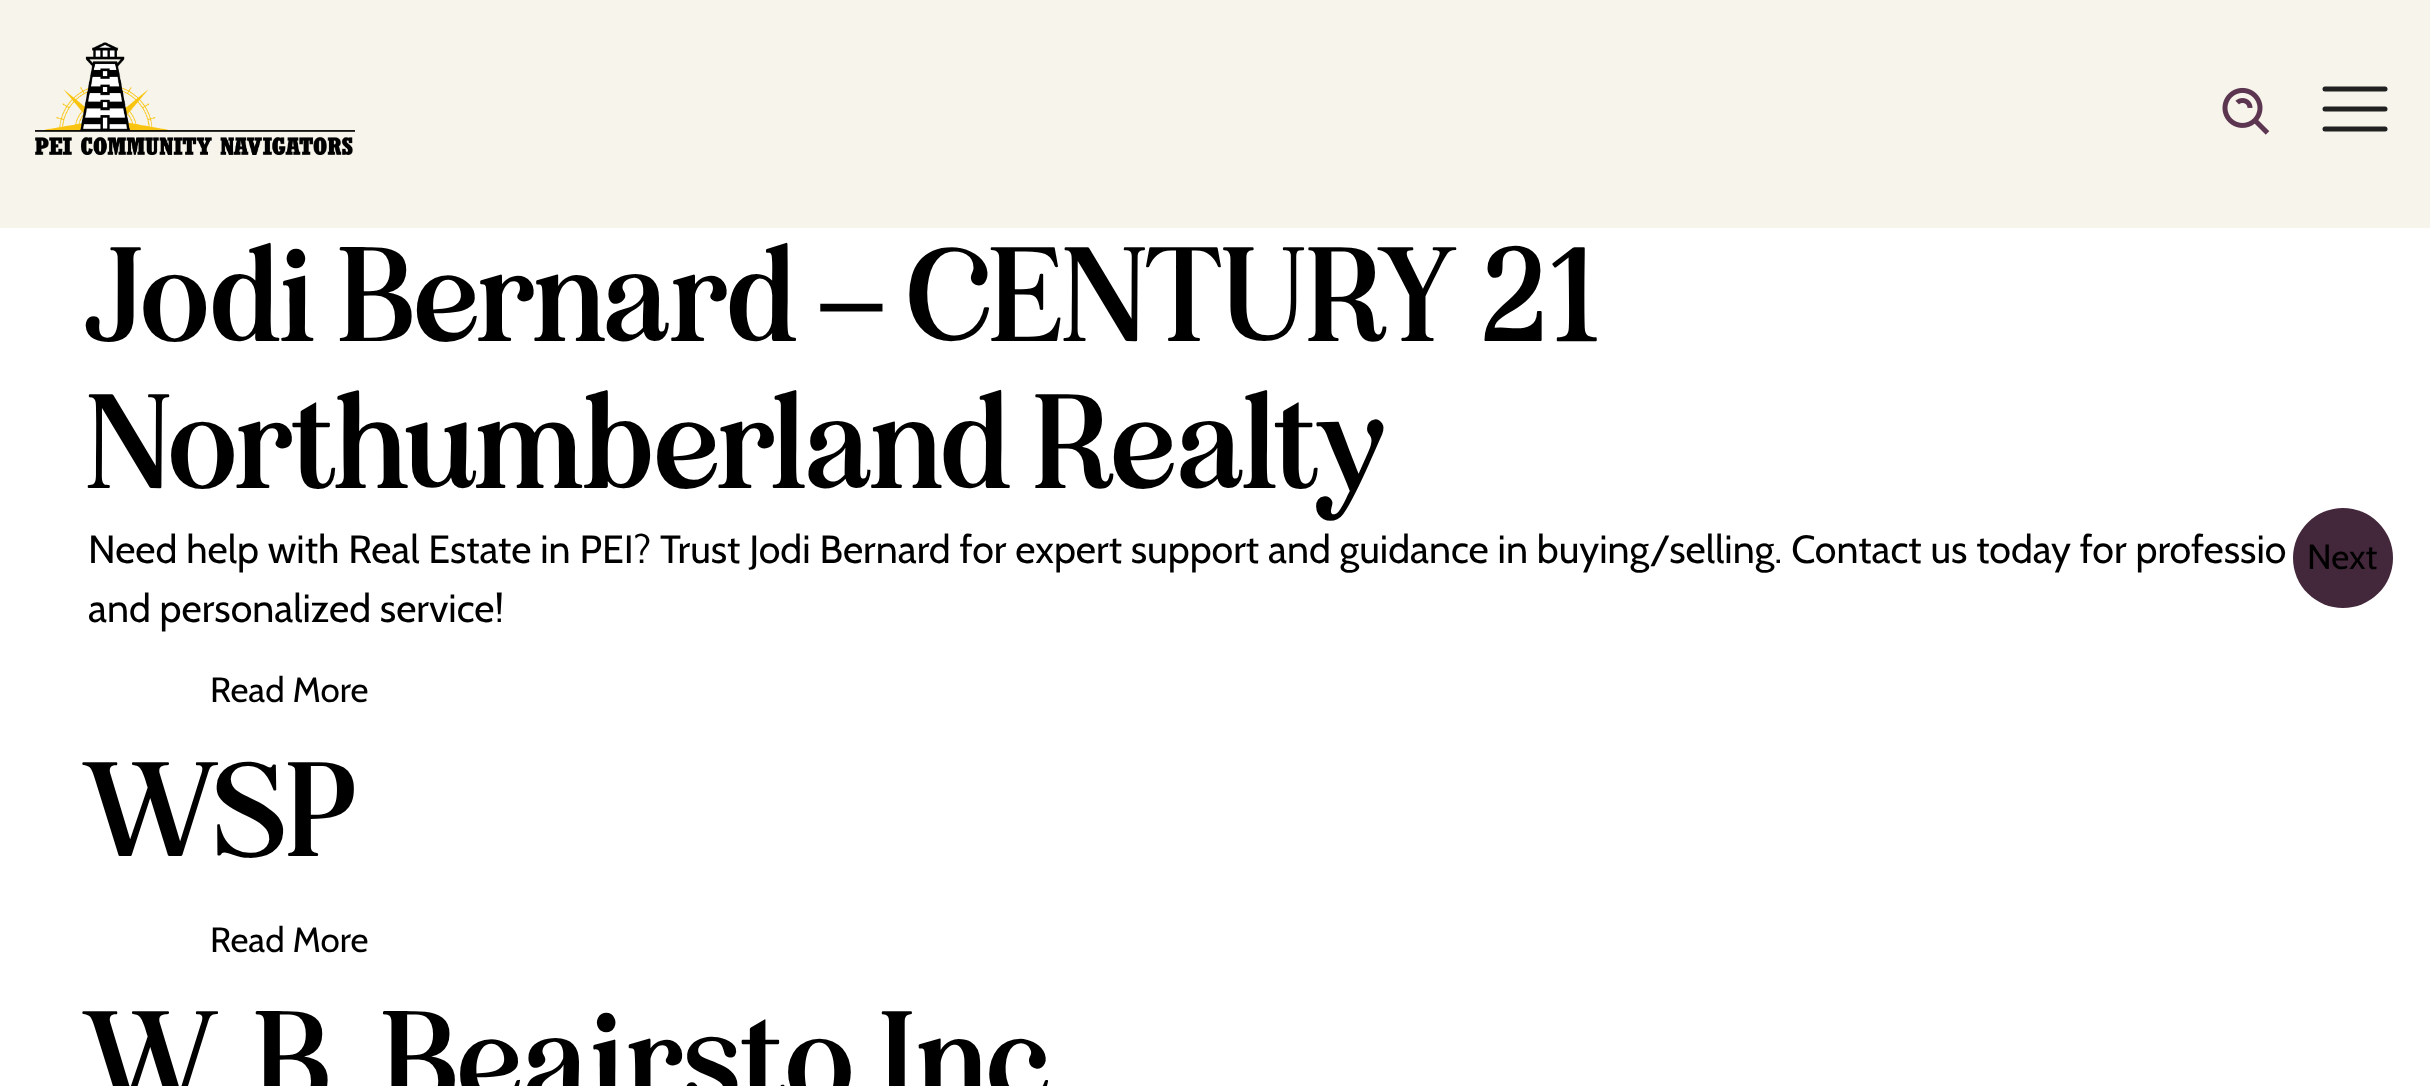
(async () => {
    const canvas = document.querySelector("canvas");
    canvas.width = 2430;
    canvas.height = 1086;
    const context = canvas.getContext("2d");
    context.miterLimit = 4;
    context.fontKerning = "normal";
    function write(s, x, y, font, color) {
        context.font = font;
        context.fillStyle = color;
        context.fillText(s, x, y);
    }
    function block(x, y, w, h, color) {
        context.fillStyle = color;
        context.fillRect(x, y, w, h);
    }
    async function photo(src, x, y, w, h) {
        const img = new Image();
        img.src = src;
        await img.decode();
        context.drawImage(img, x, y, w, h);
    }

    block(0, 0, 2430, 1086, "rgb(255, 255, 255)");
    block(0, 0, 2430, 228, "rgb(247, 245, 235)");
    await photo("media/1.png", 35, 42, 320, 113);
    await photo("media/2.png", 2222, 87, 48, 48);
    context.beginPath();
    context.moveTo(2325, 89);
    context.lineTo(2385, 89);
    context.strokeStyle = "rgb(33, 33, 33)";
    context.lineWidth = 5;
    context.lineCap = "round";
    context.stroke();
    context.beginPath();
    context.moveTo(2325, 109);
    context.lineTo(2385, 109);
    context.stroke();
    context.beginPath();
    context.moveTo(2325, 129);
    context.lineTo(2385, 129);
    context.stroke();
    context.letterSpacing = "1.25px";
    write("Jodi Bernard – CENTURY 21", 88, 341, "600 122.5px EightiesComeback", "rgb(0, 0, 0)");
    write("Northumberland Realty", 88, 488, "600 122.5px EightiesComeback", "rgb(0, 0, 0)");
    context.letterSpacing = "0px";
    write("Need help with Real Estate in PEI? Trust Jodi Bernard for expert support and guidance in buying/selling. Contact us today for professio", 88, 563, "39.38px Cabin", "rgb(0, 0, 0)");
    write("and personalized service!", 88, 622, "39.38px Cabin", "rgb(0, 0, 0)");
    write("Read More", 210, 702, "35px Cabin", "rgb(0, 0, 0)");
    context.letterSpacing = "1.25px";
    write("WSP", 88, 856, "600 122.5px EightiesComeback", "rgb(0, 0, 0)");
    context.letterSpacing = "0px";
    write("Read More", 210, 952, "35px Cabin", "rgb(0, 0, 0)");
    context.letterSpacing = "1.25px";
    write("W. B. Beairsto Inc", 88, 1105, "600 122.5px EightiesComeback", "rgb(0, 0, 0)");
    context.fillStyle = "rgb(67, 39, 59)";
    context.beginPath();
    context.arc(2343, 558, 50, 0, Math.PI * 2);
    context.fill();
    context.letterSpacing = "0px";
    write("Next", 2307, 569, "35px Cabin", "rgb(0, 0, 0)");
})();
